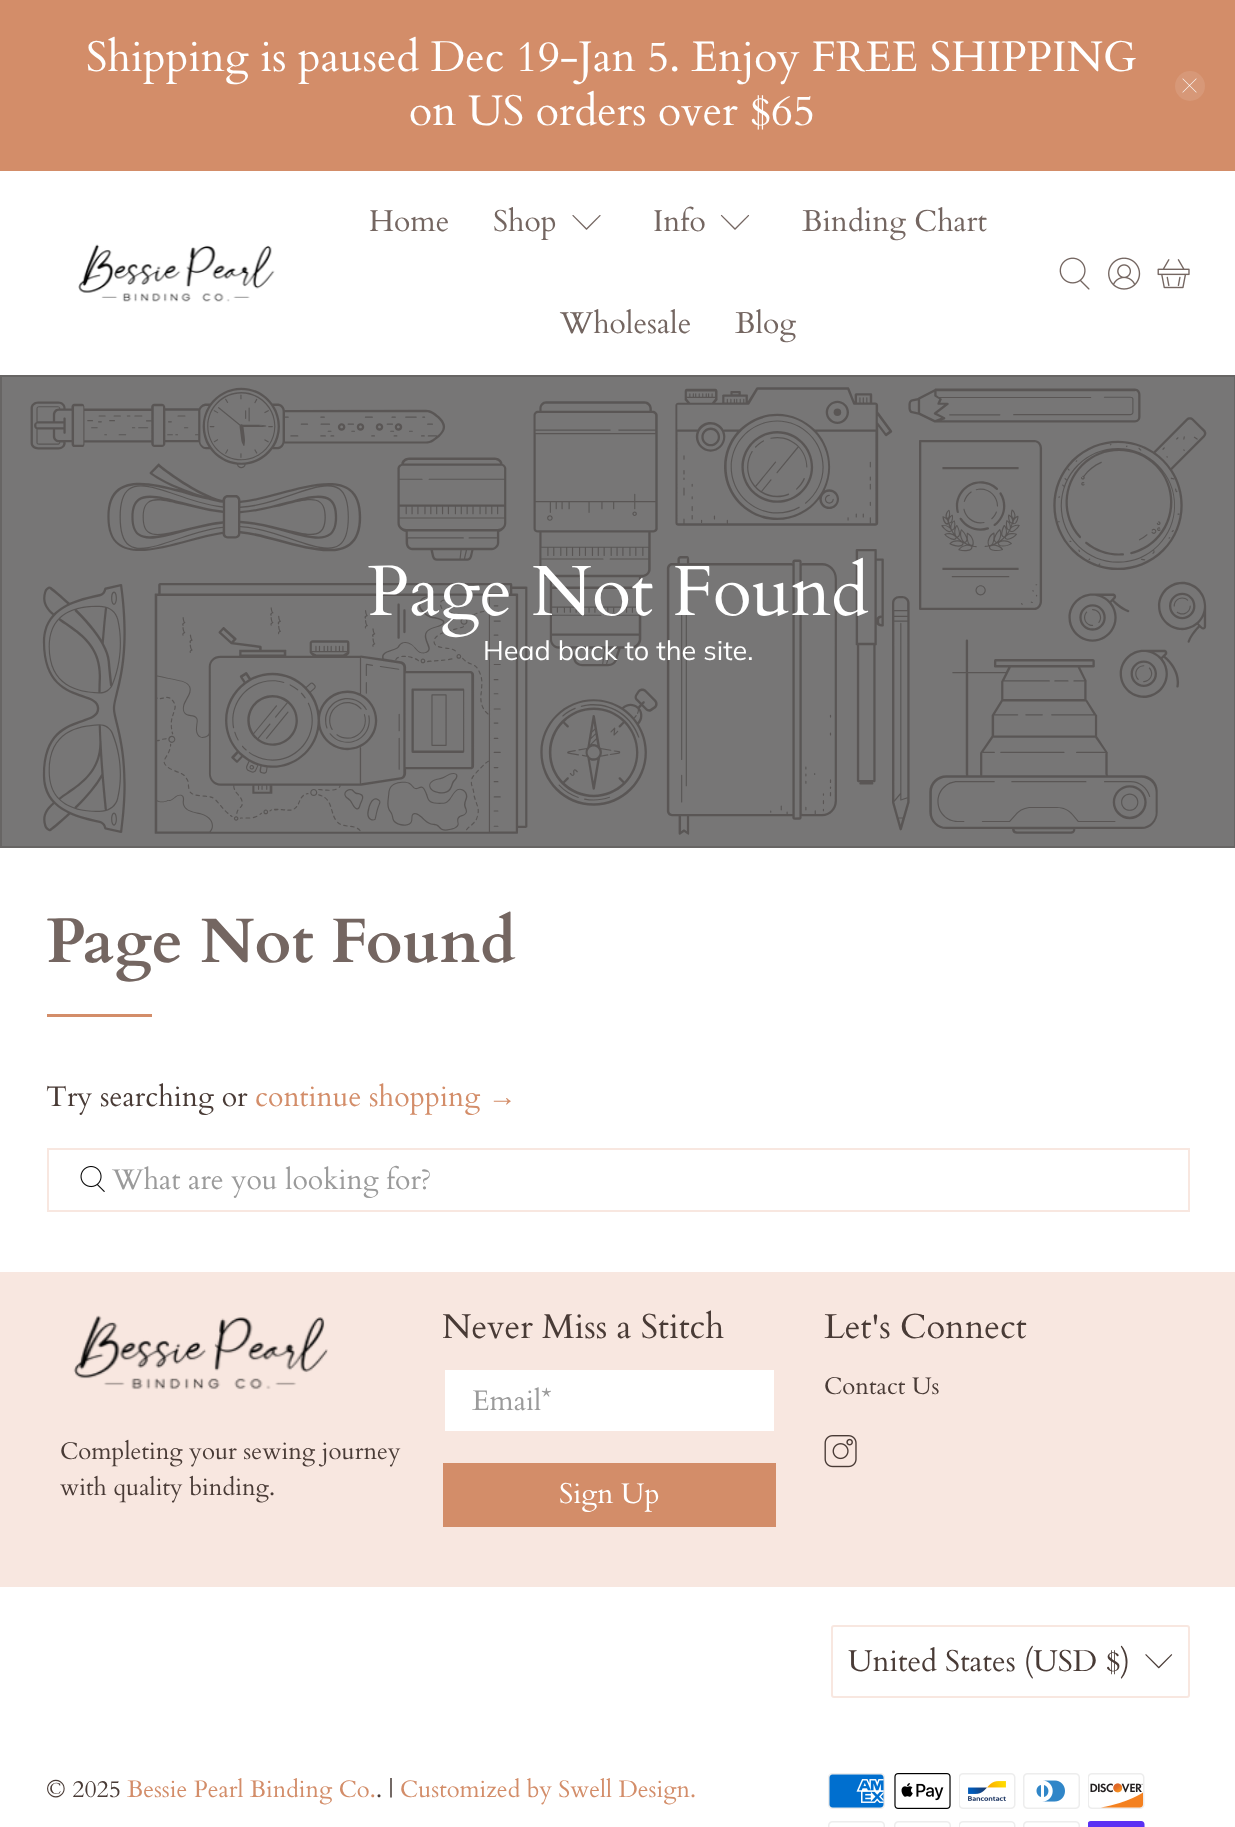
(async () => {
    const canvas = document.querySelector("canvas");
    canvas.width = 1235;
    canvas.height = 1827;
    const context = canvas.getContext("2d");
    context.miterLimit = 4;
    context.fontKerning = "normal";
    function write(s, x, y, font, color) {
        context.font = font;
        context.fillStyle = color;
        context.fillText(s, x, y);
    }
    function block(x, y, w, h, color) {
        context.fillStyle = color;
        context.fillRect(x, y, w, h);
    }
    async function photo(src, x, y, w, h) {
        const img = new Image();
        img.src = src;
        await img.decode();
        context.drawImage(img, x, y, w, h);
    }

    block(0, 0, 1235, 1827, "rgb(255, 255, 255)");
    block(0, 0, 1235, 171, "rgb(211, 141, 105)");
    write("Shipping is paused Dec 19-Jan 5. Enjoy FREE SHIPPING", 86, 71, "42.75px Cardo", "rgb(255, 255, 255)");
    write("on US orders over $65", 409, 125, "42.75px Cardo", "rgb(255, 255, 255)");
    context.fillStyle = "rgb(215, 152, 120)";
    context.beginPath();
    context.arc(1190, 86, 15, 0, Math.PI * 2);
    context.fill();
    await photo("media/1.png", 1182, 78, 15, 15);
    await photo("media/2.png", 78, 244, 197, 58);
    write("Home", 369, 231, "30px Cardo", "rgb(116, 102, 97)");
    write("Shop", 493, 231, "30px Cardo", "rgb(116, 102, 97)");
    await photo("media/3.png", 572, 215, 29, 15);
    write("Info", 653, 231, "30px Cardo", "rgb(116, 102, 97)");
    await photo("media/4.png", 720, 214, 30, 16);
    write("Binding Chart", 802, 231, "30px Cardo", "rgb(116, 102, 97)");
    write("Wholesale", 560, 333, "30px Cardo", "rgb(116, 102, 97)");
    write("Blog", 735, 333, "30px Cardo", "rgb(116, 102, 97)");
    await photo("media/5.png", 1059, 257, 31, 33);
    await photo("media/6.png", 1108, 257, 33, 33);
    await photo("media/7.png", 1157, 259, 33, 30);
    context.fillStyle = "rgb(119, 118, 118)";
    context.beginPath();
    context.rect(1, 376, 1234, 471);
    context.fill();
    context.strokeStyle = "rgb(103, 101, 100)";
    context.lineWidth = 2;
    context.stroke();
    await photo("media/8.png", 30, 387, 1177, 448);
    write("Page Not Found", 367, 615, "71.25px Cardo", "rgb(255, 255, 255)");
    write("Head back to the site.", 483, 660, "27px Muli", "rgb(255, 255, 255)");
    write("Page Not Found", 46, 962, "bold 63px Cardo", "rgb(116, 102, 97)");
    block(47, 1014, 105, 3, "rgb(211, 141, 105)");
    write("Try searching or", 46, 1106, "28.5px Cardo", "rgb(73, 59, 54)");
    write("continue shopping", 255, 1106, "28.5px Cardo", "rgb(211, 141, 105)");
    write("→", 488, 1106, "28.5px Liberation Serif", "rgb(211, 141, 105)");
    context.strokeStyle = "rgb(248, 231, 224)";
    context.strokeRect(48, 1149, 1141, 62);
    await photo("media/9.png", 80, 1166, 25, 26);
    write("What are you looking for?", 112, 1189, "28.5px Cardo", "rgb(155, 155, 155)");
    block(0, 1272, 1235, 315, "rgb(248, 231, 224)");
    write("Never Miss a Stitch", 442, 1338, "34.5px Cardo", "rgb(73, 59, 54)");
    block(445, 1370, 329, 61, "rgb(255, 255, 255)");
    write("Email*", 472, 1410, "28.5px Cardo", "rgb(155, 155, 155)");
    block(443, 1463, 333, 64, "rgb(211, 141, 105)");
    write("Sign Up", 559, 1503, "28.5px Cardo", "rgb(255, 255, 255)");
    write("Let's Connect", 824, 1338, "34.5px Cardo", "rgb(73, 59, 54)");
    write("Contact Us", 824, 1394, "24px Cardo", "rgb(73, 59, 54)");
    await photo("media/10.png", 824, 1435, 33, 33);
    await photo("media/11.png", 73, 1315, 255, 75);
    write("Completing your sewing journey", 60, 1459, "24px Cardo", "rgb(73, 59, 54)");
    write("with quality binding.", 60, 1495, "24px Cardo", "rgb(73, 59, 54)");
    context.beginPath();
    context.roundRect(832, 1626, 357, 71, 2);
    context.stroke();
    write("United States (USD $)", 848, 1671, "30px Cardo", "rgb(73, 59, 54)");
    await photo("media/12.png", 1145, 1654, 28, 15);
    write("© 2025", 46, 1797, "23.75px Cardo", "rgb(73, 59, 54)");
    write("Bessie Pearl Binding Co.", 127, 1797, "23.75px Cardo", "rgb(211, 141, 105)");
    write(". |", 376, 1797, "23.75px Cardo", "rgb(73, 59, 54)");
    write("Customized by Swell Design.", 400, 1797, "23.75px Cardo", "rgb(211, 141, 105)");
    await photo("media/13.png", 828, 1773, 57, 36);
    await photo("media/14.png", 894, 1773, 57, 36);
    await photo("media/15.png", 959, 1773, 57, 36);
    await photo("media/16.png", 1023, 1773, 57, 36);
    await photo("media/17.png", 1088, 1773, 57, 36);
    await photo("media/18.png", 828, 1821, 57, 6);
    await photo("media/18.png", 894, 1821, 57, 6);
    await photo("media/19.png", 959, 1821, 57, 6);
    await photo("media/18.png", 1023, 1821, 57, 6);
    await photo("media/20.png", 1088, 1821, 57, 6);
})();
